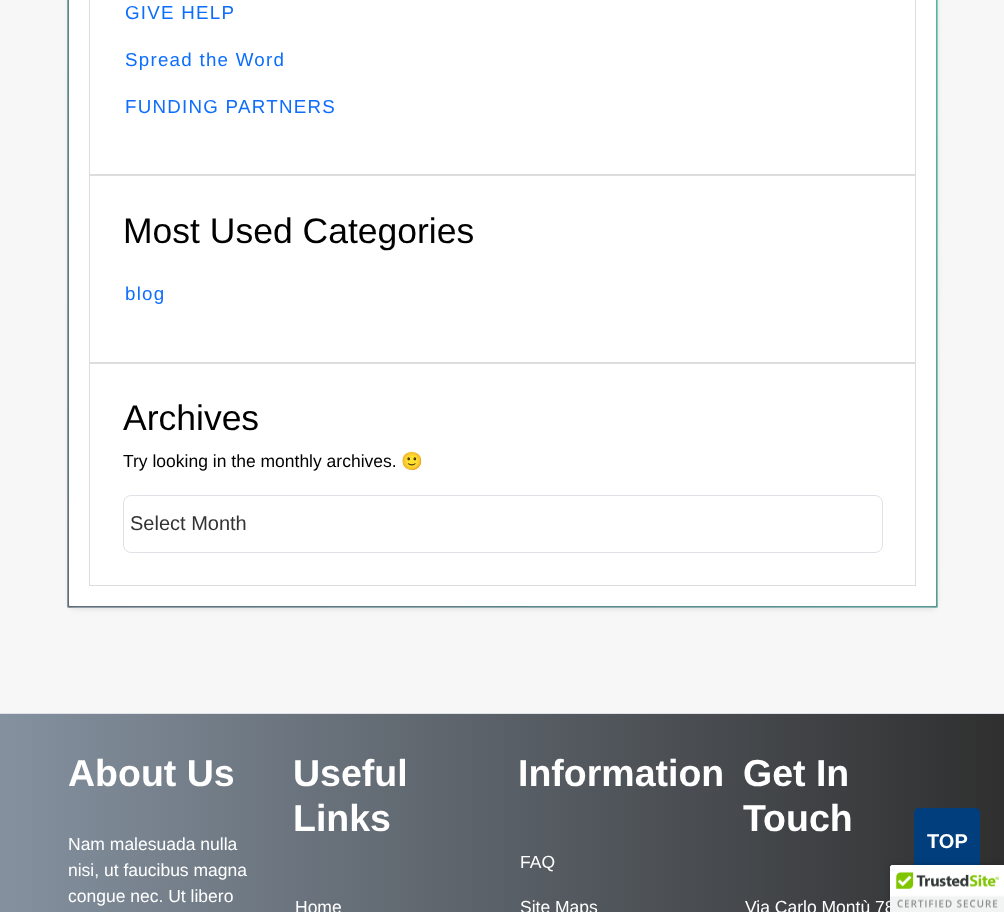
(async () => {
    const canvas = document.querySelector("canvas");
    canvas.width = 1004;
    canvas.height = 912;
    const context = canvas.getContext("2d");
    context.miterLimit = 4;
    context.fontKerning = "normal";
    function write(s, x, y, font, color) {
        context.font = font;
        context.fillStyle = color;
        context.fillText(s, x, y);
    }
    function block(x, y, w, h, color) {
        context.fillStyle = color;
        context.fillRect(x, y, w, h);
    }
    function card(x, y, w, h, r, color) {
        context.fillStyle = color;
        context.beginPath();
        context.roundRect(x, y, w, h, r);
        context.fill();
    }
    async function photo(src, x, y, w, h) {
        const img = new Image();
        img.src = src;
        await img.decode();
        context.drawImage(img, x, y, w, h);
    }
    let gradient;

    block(0, 0, 1004, 912, "rgb(247, 247, 247)");
    context.fillStyle = "rgba(0, 0, 0, 0.07)";
    context.filter = "blur(2.5px)";
    context.beginPath();
    context.roundRect(68, -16, 870, 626, 8);
    context.fill();
    context.filter = "none";
    card(68, -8, 870, 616, 8, "rgb(255, 255, 255)");
    await photo("media/1.png", 67, 0, 871, 608);
    context.strokeStyle = "rgb(221, 221, 221)";
    context.strokeRect(89.5, -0.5, 826, 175);
    context.letterSpacing = "1.25px";
    write("GIVE HELP", 125, 19, "18.75px Liberation Sans", "rgb(13, 110, 253)");
    write("Spread the Word", 125, 66, "18.75px Liberation Sans", "rgb(13, 110, 253)");
    write("FUNDING PARTNERS", 125, 113, "18.75px Liberation Sans", "rgb(13, 110, 253)");
    context.strokeRect(89.5, 175.5, 826, 187);
    context.letterSpacing = "0px";
    write("Most Used Categories", 123, 243, "35.5px Liberation Sans", "rgb(0, 0, 0)");
    context.letterSpacing = "1.25px";
    write("blog", 125, 300, "18.75px Liberation Sans", "rgb(13, 110, 253)");
    context.strokeRect(89.5, 363.5, 826, 222);
    context.letterSpacing = "0px";
    write("Archives", 123, 430, "35.5px Liberation Sans", "rgb(0, 0, 0)");
    write("Try looking in the monthly archives.", 123, 467, "17.5px Liberation Sans", "rgb(0, 0, 0)");
    write("🙂", 401, 467, "17.5px Noto Color Emoji", "rgb(0, 0, 0)");
    context.beginPath();
    context.roundRect(123.5, 495.5, 759, 57, 7.5);
    context.strokeStyle = "rgb(222, 226, 230)";
    context.stroke();
    write("Select Month", 130, 530, "20px Liberation Sans", "rgb(51, 51, 51)");
    gradient = context.createLinearGradient(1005, 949, 0, 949);
    gradient.addColorStop(0, "rgb(47, 47, 47)");
    gradient.addColorStop(1, "rgb(132, 145, 159)");
    context.fillStyle = gradient;
    context.fillRect(0, 714, 1004, 198);
    block(0, 713, 1004, 1, "rgb(222, 226, 230)");
    write("About Us", 68, 786, "bold 37.5px Liberation Sans", "rgb(255, 255, 255)");
    write("Nam malesuada nulla", 68, 850, "17.5px Liberation Sans", "rgb(255, 255, 255)");
    write("nisi, ut faucibus magna", 68, 876, "17.5px Liberation Sans", "rgb(255, 255, 255)");
    write("congue nec. Ut libero", 68, 902, "17.5px Liberation Sans", "rgb(255, 255, 255)");
    write("Useful", 293, 786, "bold 37.5px Liberation Sans", "rgb(255, 255, 255)");
    write("Links", 293, 831, "bold 37.5px Liberation Sans", "rgb(255, 255, 255)");
    write("Home", 295, 913, "17.5px Liberation Sans", "rgb(255, 255, 255)");
    write("Information", 518, 786, "bold 37.5px Liberation Sans", "rgb(255, 255, 255)");
    write("FAQ", 520, 868, "17.5px Liberation Sans", "rgb(255, 255, 255)");
    write("Site Maps", 520, 913, "17.5px Liberation Sans", "rgb(255, 255, 255)");
    write("Get In", 743, 786, "bold 37.5px Liberation Sans", "rgb(255, 255, 255)");
    write("Touch", 743, 831, "bold 37.5px Liberation Sans", "rgb(255, 255, 255)");
    write("Via Carlo Montù 78", 745, 913, "17.5px Liberation Sans", "rgb(255, 255, 255)");
    card(914, 808, 66, 67, 5, "rgb(0, 62, 125)");
    write("TOP", 927, 848, "bold 20px Liberation Sans", "rgb(255, 255, 255)");
    context.fillStyle = "rgba(0, 0, 0, 0.2)";
    context.filter = "blur(3px)";
    context.beginPath();
    context.roundRect(890, 865, 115, 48, 2.5);
    context.fill();
    context.filter = "none";
    context.fillStyle = "rgb(255, 255, 255)";
    context.beginPath();
    context.moveTo(892.5, 865);
    context.lineTo(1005, 865);
    context.lineTo(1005, 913);
    context.lineTo(890, 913);
    context.lineTo(890, 867.5);
    context.bezierCurveTo(890, 866, 891, 865, 892.5, 865);
    context.closePath();
    context.fill();
    await photo("media/2.png", 890, 865, 114, 47);
})();
